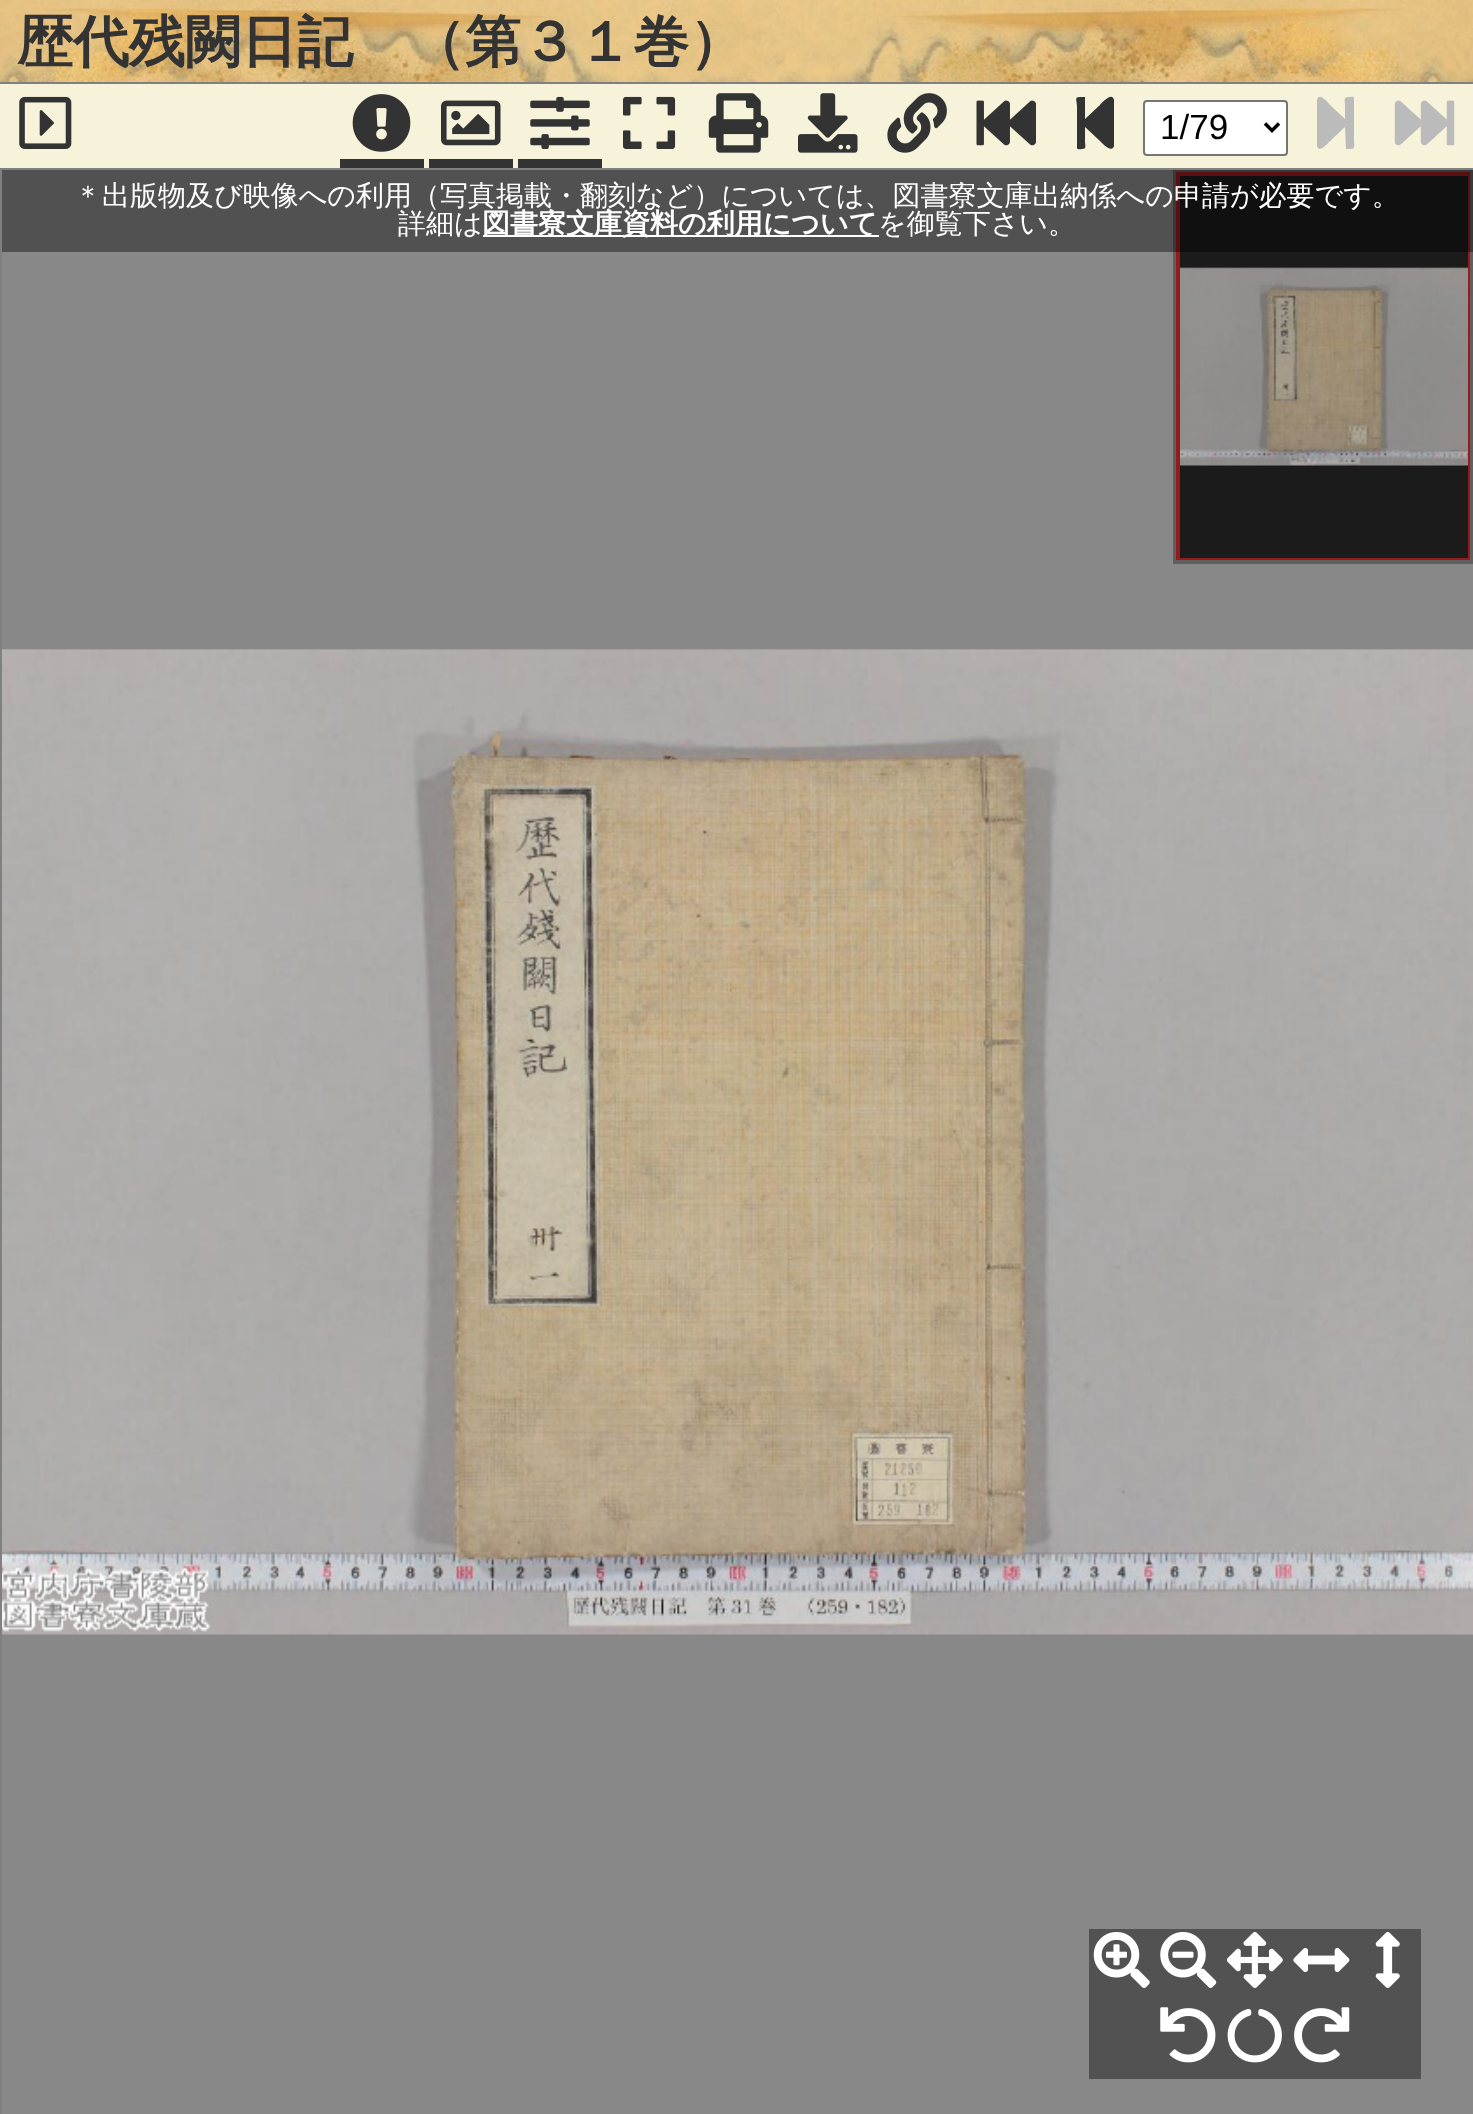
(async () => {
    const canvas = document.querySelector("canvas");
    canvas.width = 1473;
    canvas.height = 2114;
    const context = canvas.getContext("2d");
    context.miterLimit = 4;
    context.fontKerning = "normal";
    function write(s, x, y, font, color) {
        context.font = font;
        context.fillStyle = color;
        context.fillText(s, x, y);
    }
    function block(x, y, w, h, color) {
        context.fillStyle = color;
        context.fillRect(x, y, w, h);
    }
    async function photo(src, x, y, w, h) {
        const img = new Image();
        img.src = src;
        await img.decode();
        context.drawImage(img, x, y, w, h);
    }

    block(0, 0, 1473, 2114, "rgb(255, 255, 255)");
    await photo("media/1.png", 0, 0, 1473, 82);
    block(0, 82, 1473, 2, "rgb(128, 128, 128)");
    write("歴代残闕日記　（第３１巻）", 17, 61, "bold 56px WenQuanYi Zen Hei", "rgb(51, 51, 51)");
    block(0, 84, 1473, 84, "rgb(247, 243, 219)");
    block(2, 170, 1471, 1944, "rgb(136, 136, 136)");
    block(1180, 176, 288, 382, "rgb(27, 27, 27)");
    context.strokeStyle = "rgb(95, 95, 95)";
    context.lineWidth = 4;
    context.strokeRect(1175, 170, 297, 392);
    block(0, 168, 1473, 2, "rgb(128, 128, 128)");
    await photo("media/2.png", 19, 96, 53, 53);
    block(340, 159, 84, 9, "rgb(51, 51, 51)");
    await photo("media/3.png", 352, 94, 59, 58);
    block(429, 159, 84, 9, "rgb(51, 51, 51)");
    await photo("media/4.png", 441, 100, 60, 46);
    block(518, 159, 84, 9, "rgb(51, 51, 51)");
    await photo("media/5.png", 530, 96, 60, 53);
    await photo("media/6.png", 623, 96, 53, 53);
    await photo("media/7.png", 708, 93, 61, 60);
    await photo("media/8.png", 798, 93, 60, 60);
    await photo("media/9.png", 887, 93, 60, 60);
    await photo("media/10.png", 976, 100, 60, 46);
    context.beginPath();
    context.moveTo(1077, 148);
    context.lineTo(1077, 107);
    context.bezierCurveTo(1077, 100, 1074, 97, 1080, 97);
    context.lineTo(1085, 97);
    context.lineTo(1085, 119);
    context.lineTo(1100, 105);
    context.bezierCurveTo(1101, 104, 1112, 91, 1114, 100);
    context.lineTo(1114, 146);
    context.bezierCurveTo(1112, 154, 1101, 142, 1100, 141);
    context.lineTo(1085, 127);
    context.lineTo(1085, 141);
    context.bezierCurveTo(1085, 146, 1087, 149, 1082, 149);
    context.bezierCurveTo(1081, 149, 1077, 150, 1077, 148);
    context.closePath();
    context.fill();
    context.fillStyle = "rgb(255, 255, 255)";
    context.beginPath();
    context.roundRect(1144, 101, 143, 54, 3);
    context.fill();
    context.strokeStyle = "rgb(118, 118, 118)";
    context.lineWidth = 2;
    context.stroke();
    context.beginPath();
    context.moveTo(1265, 123.5);
    context.lineTo(1272, 130.5);
    context.lineTo(1279, 123.5);
    context.strokeStyle = "rgb(0, 0, 0)";
    context.lineWidth = 3.5;
    context.stroke();
    write("1/79", 1160, 139, "35px Liberation Sans", "rgb(0, 0, 0)");
    context.fillStyle = "rgb(187, 187, 187)";
    context.beginPath();
    context.moveTo(1354, 98);
    context.lineTo(1354, 139);
    context.bezierCurveTo(1354, 146, 1356, 149, 1350, 149);
    context.lineTo(1346, 149);
    context.lineTo(1345, 127);
    context.lineTo(1330, 141);
    context.bezierCurveTo(1329, 142, 1319, 154, 1317, 146);
    context.lineTo(1317, 100);
    context.bezierCurveTo(1319, 91, 1329, 104, 1330, 105);
    context.lineTo(1345, 119);
    context.lineTo(1345, 105);
    context.bezierCurveTo(1345, 100, 1343, 97, 1349, 97);
    context.bezierCurveTo(1350, 97, 1354, 96, 1354, 98);
    context.closePath();
    context.fill();
    await photo("media/11.png", 1394, 100, 61, 46);
    block(0, 168, 2, 1946, "rgb(128, 128, 128)");
    await photo("media/12.png", 1180, 267, 288, 199);
    context.save();
    context.beginPath();
    context.rect(1176, 172, 294, 388);
    context.clip();
    context.strokeStyle = "rgb(150, 27, 27)";
    context.lineWidth = 4;
    context.strokeRect(1178, 174, 292, 386);
    context.restore();
    await photo("media/13.png", 2, 649, 1471, 986);
    block(2, 170, 1471, 82, "rgba(0, 0, 0, 0.4)");
    write("＊出版物及び映像への利用（写真掲載・翻刻など）については、図書寮文庫出納係への申請が必要です。", 74, 205, "500 28px WenQuanYi Zen Hei", "rgb(255, 255, 255)");
    write("詳細は", 398, 233, "500 28px WenQuanYi Zen Hei", "rgb(255, 255, 255)");
    block(483, 235, 396, 2, "rgb(255, 255, 255)");
    write("図書寮文庫資料の利用について", 482, 233, "bold 28px WenQuanYi Zen Hei", "rgb(255, 255, 255)");
    write("を御覧下さい。", 878, 233, "500 28px WenQuanYi Zen Hei", "rgb(255, 255, 255)");
    block(1089, 1929, 332, 150, "rgb(82, 82, 82)");
    await photo("media/14.png", 1093, 1932, 57, 56);
    await photo("media/15.png", 1160, 1932, 57, 56);
    await photo("media/16.png", 1226, 1932, 57, 56);
    await photo("media/17.png", 1293, 1948, 57, 24);
    await photo("media/18.png", 1375, 1932, 25, 56);
    await photo("media/19.png", 1160, 2007, 56, 56);
    await photo("media/20.png", 1227, 2008, 55, 55);
    await photo("media/21.png", 1294, 2007, 56, 56);
})();
